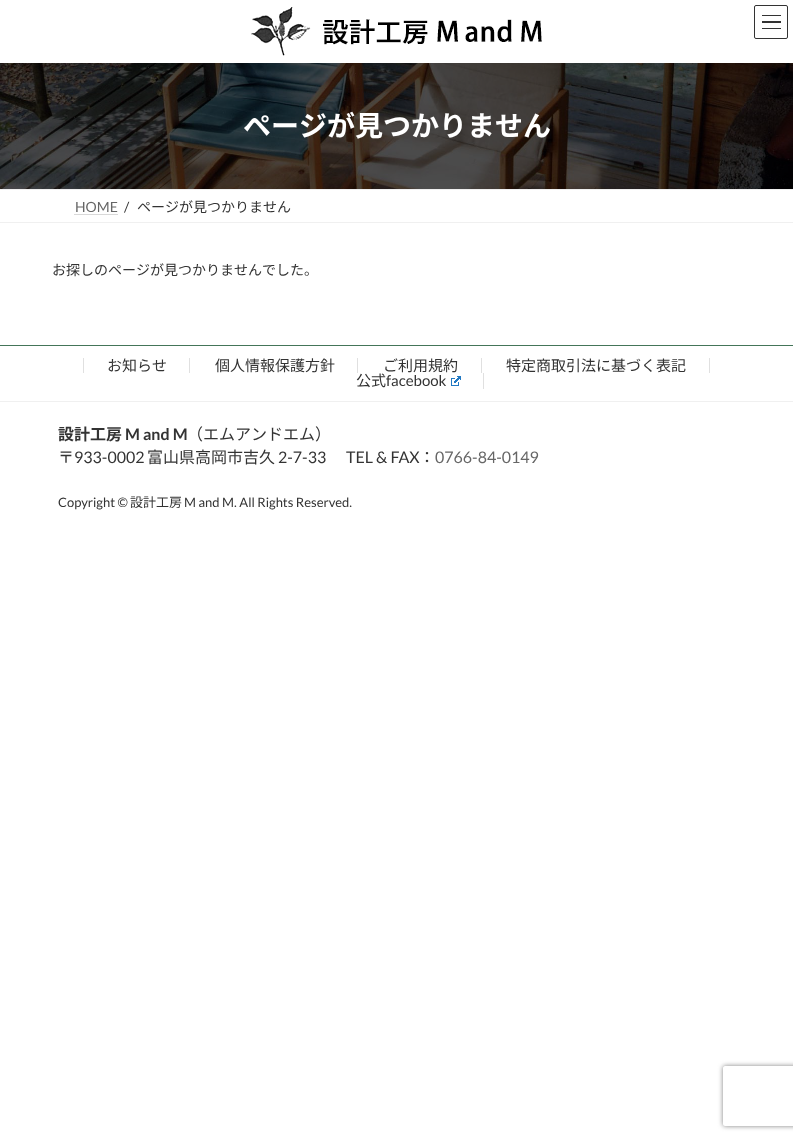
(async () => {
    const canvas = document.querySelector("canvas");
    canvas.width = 793;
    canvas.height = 1140;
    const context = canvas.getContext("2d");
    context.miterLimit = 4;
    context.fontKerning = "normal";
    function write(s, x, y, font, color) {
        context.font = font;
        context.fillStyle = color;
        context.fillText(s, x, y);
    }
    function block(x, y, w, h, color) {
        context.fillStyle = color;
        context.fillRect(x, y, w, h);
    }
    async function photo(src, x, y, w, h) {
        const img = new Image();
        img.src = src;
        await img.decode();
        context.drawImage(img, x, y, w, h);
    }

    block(0, 0, 793, 1140, "rgb(255, 255, 255)");
    await photo("media/1.png", 251, 7, 291, 49);
    block(762, 15, 19, 1, "rgb(51, 51, 51)");
    block(762, 21, 19, 2, "rgb(51, 51, 51)");
    block(762, 28, 19, 1, "rgb(51, 51, 51)");
    context.beginPath();
    context.roundRect(754.5, 5.5, 33, 33, 1.5);
    context.strokeStyle = "rgb(51, 51, 51)";
    context.stroke();
    await photo("media/2.png", 0, 63, 793, 126);
    write("ページが見つかりません", 243, 136, "bold 28px Noto Sans JP", "rgb(255, 255, 255)");
    block(0, 189, 793, 1, "rgb(240, 240, 240)");
    block(0, 222, 793, 1, "rgb(240, 240, 240)");
    write("HOME", 75, 212, "14px Lato", "rgb(102, 102, 102)");
    context.beginPath();
    context.moveTo(74.5, 214.5);
    context.lineTo(117.5, 214.5);
    context.strokeStyle = "rgb(179, 179, 179)";
    context.setLineDash([1, 1]);
    context.stroke();
    write("/", 124, 212, "14px Lato", "rgb(51, 51, 51)");
    write("ページが見つかりません", 137, 212, "14px Noto Sans JP", "rgb(51, 51, 51)");
    write("お探しのページが見つかりませんでした。", 52, 275, "14px Noto Sans JP", "rgb(51, 51, 51)");
    block(0, 345, 793, 1, "rgb(68, 117, 89)");
    block(0, 401, 793, 1, "rgb(240, 240, 240)");
    block(189, 358, 1, 15, "rgb(224, 224, 224)");
    block(83, 358, 1, 15, "rgb(224, 224, 224)");
    write("お知らせ", 107, 371, "15px Noto Sans JP", "rgb(51, 51, 51)");
    block(357, 358, 1, 15, "rgb(224, 224, 224)");
    write("個人情報保護方針", 215, 371, "15px Noto Sans JP", "rgb(51, 51, 51)");
    block(481, 358, 1, 15, "rgb(224, 224, 224)");
    write("ご利用規約", 383, 371, "15px Noto Sans JP", "rgb(51, 51, 51)");
    block(709, 358, 1, 15, "rgb(224, 224, 224)");
    write("特定商取引法に基づく表記", 506, 371, "15px Noto Sans JP", "rgb(51, 51, 51)");
    block(483, 373, 1, 16, "rgb(224, 224, 224)");
    write("公式", 356, 386, "15px Noto Sans JP", "rgb(51, 51, 51)");
    write("facebook", 386, 386, "15px Lato", "rgb(51, 51, 51)");
    await photo("media/3.png", 451, 376, 10, 10);
    write("設計工房", 58, 440, "bold 16px Noto Sans JP", "rgb(51, 51, 51)");
    write("M and M", 125, 440, "bold 16px Lato", "rgb(51, 51, 51)");
    write("（エムアンドエム）", 187, 440, "16px Noto Sans JP", "rgb(51, 51, 51)");
    write("〒", 58, 463, "16px Noto Sans JP", "rgb(51, 51, 51)");
    write("933-0002", 74, 463, "16px Lato", "rgb(51, 51, 51)");
    write("富山県高岡市吉久", 147, 463, "16px Noto Sans JP", "rgb(51, 51, 51)");
    write("2-7-33", 278, 463, "16px Lato", "rgb(51, 51, 51)");
    write("TEL & FAX", 346, 463, "16px Lato", "rgb(51, 51, 51)");
    write("：", 419, 463, "16px Noto Sans JP", "rgb(51, 51, 51)");
    write("0766-84-0149", 435, 463, "16px Lato", "rgb(102, 102, 102)");
    write("Copyright ©", 58, 507, "13px Lato", "rgb(51, 51, 51)");
    write("設計工房", 130, 507, "13px Noto Sans JP", "rgb(51, 51, 51)");
    write("M and M. All Rights Reserved.", 184, 507, "13px Lato", "rgb(51, 51, 51)");
    context.save();
    context.beginPath();
    context.moveTo(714, 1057);
    context.lineTo(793, 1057);
    context.lineTo(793, 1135);
    context.lineTo(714, 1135);
    context.closePath();
    context.moveTo(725, 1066);
    context.lineTo(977, 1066);
    context.bezierCurveTo(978, 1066, 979, 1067, 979, 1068);
    context.lineTo(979, 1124);
    context.bezierCurveTo(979, 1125, 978, 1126, 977, 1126);
    context.lineTo(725, 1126);
    context.bezierCurveTo(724, 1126, 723, 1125, 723, 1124);
    context.lineTo(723, 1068);
    context.bezierCurveTo(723, 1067, 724, 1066, 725, 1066);
    context.closePath();
    context.clip("evenodd");
    context.fillStyle = "rgb(128, 128, 128)";
    context.filter = "blur(2.5px)";
    context.beginPath();
    context.roundRect(723, 1066, 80, 60, 2);
    context.fill();
    context.filter = "none";
    context.restore();
})();
